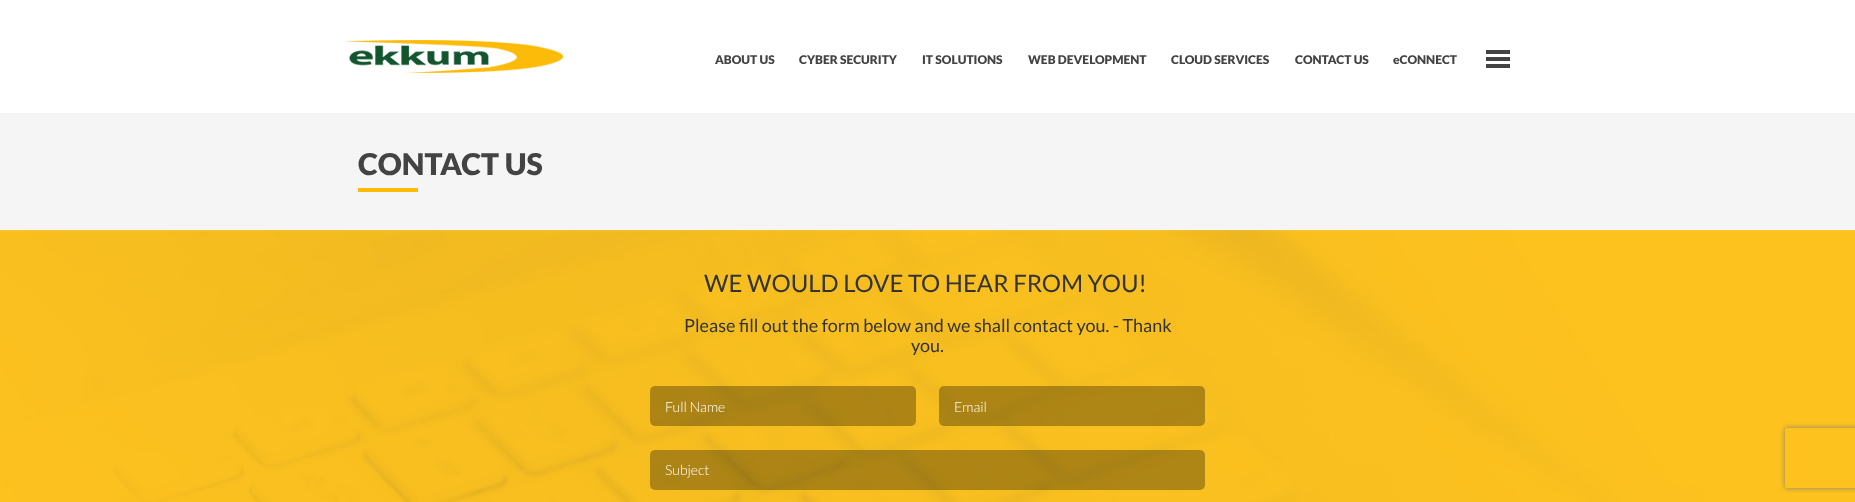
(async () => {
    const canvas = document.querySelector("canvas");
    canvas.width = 1855;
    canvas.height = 502;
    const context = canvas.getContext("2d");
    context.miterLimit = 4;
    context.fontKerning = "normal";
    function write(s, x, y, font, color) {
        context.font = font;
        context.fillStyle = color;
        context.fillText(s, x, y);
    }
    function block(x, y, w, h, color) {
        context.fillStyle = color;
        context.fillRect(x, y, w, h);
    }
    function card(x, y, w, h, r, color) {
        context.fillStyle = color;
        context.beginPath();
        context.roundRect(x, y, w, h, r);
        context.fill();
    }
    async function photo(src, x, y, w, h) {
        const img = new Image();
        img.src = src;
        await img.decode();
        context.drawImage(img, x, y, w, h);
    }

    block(0, 0, 1855, 502, "rgb(245, 245, 245)");
    block(0, 0, 1855, 113, "rgb(255, 255, 255)");
    await photo("media/1.png", 343, 40, 220, 33);
    write("ABOUT US", 715, 64, "900 12px Lato", "rgb(67, 67, 67)");
    write("CYBER SECURITY", 799, 64, "900 12px Lato", "rgb(67, 67, 67)");
    write("IT SOLUTIONS", 922, 64, "900 12px Lato", "rgb(67, 67, 67)");
    write("WEB DEVELOPMENT", 1028, 64, "900 12px Lato", "rgb(67, 67, 67)");
    write("CLOUD SERVICES", 1171, 64, "900 12px Lato", "rgb(67, 67, 67)");
    write("CONTACT US", 1295, 64, "900 12px Lato", "rgb(67, 67, 67)");
    write("eCONNECT", 1393, 64, "900 12px Lato", "rgb(67, 67, 67)");
    await photo("media/2.png", 1486, 50, 24, 18);
    write("CONTACT US", 358, 175, "900 30px Lato", "rgb(67, 67, 67)");
    block(358, 188, 60, 4, "rgb(252, 187, 7)");
    await photo("media/3.png", 0, 230, 1855, 272);
    write("WE WOULD LOVE TO HEAR FROM YOU!", 704, 292, "24px Lato", "rgb(51, 51, 51)");
    write("Please fill out the form below and we shall contact you. - Thank", 684, 332, "18px Lato", "rgb(51, 51, 51)");
    write("you.", 911, 352, "18px Lato", "rgb(51, 51, 51)");
    card(650, 386, 266, 40, 5, "rgba(0, 0, 0, 0.3)");
    write("Full Name", 665, 412, "300 14px Lato", "rgb(255, 255, 255)");
    card(939, 386, 266, 40, 5, "rgba(0, 0, 0, 0.3)");
    write("Email", 954, 412, "300 14px Lato", "rgb(255, 255, 255)");
    card(650, 450, 555, 40, 5, "rgba(0, 0, 0, 0.3)");
    write("Subject", 665, 475, "300 14px Lato", "rgb(255, 255, 255)");
    context.save();
    context.beginPath();
    context.moveTo(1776, 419);
    context.lineTo(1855, 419);
    context.lineTo(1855, 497);
    context.lineTo(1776, 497);
    context.closePath();
    context.moveTo(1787, 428);
    context.lineTo(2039, 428);
    context.bezierCurveTo(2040, 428, 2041, 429, 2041, 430);
    context.lineTo(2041, 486);
    context.bezierCurveTo(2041, 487, 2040, 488, 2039, 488);
    context.lineTo(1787, 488);
    context.bezierCurveTo(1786, 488, 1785, 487, 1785, 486);
    context.lineTo(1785, 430);
    context.bezierCurveTo(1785, 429, 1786, 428, 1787, 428);
    context.closePath();
    context.clip("evenodd");
    context.fillStyle = "rgb(128, 128, 128)";
    context.filter = "blur(2.5px)";
    context.beginPath();
    context.roundRect(1785, 428, 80, 60, 2);
    context.fill();
    context.filter = "none";
    context.restore();
})();
